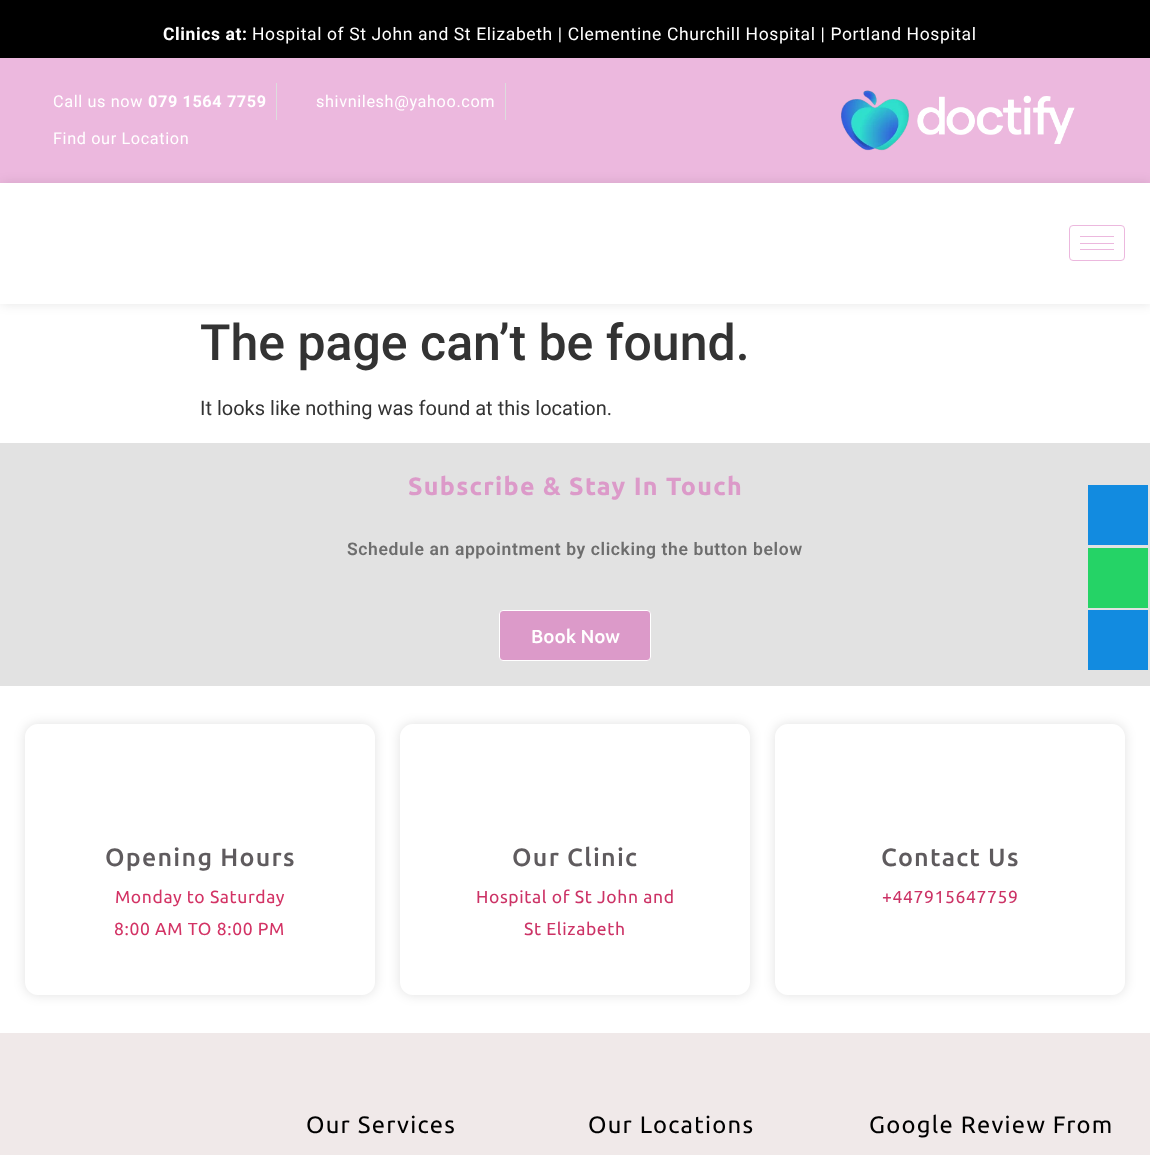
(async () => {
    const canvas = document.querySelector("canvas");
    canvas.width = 1150;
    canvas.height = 1155;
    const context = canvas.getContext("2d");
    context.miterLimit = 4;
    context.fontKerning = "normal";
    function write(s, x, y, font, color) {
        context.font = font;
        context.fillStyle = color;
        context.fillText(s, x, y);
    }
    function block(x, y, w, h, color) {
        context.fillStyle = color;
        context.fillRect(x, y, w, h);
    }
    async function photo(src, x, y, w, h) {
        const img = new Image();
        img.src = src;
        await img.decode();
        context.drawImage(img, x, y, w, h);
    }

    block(0, 0, 1150, 1155, "rgb(255, 255, 255)");
    block(0, 0, 1150, 58, "rgb(0, 0, 0)");
    context.letterSpacing = "0.62px";
    write("Clinics at:", 163, 40, "bold 17.5px Roboto", "rgb(255, 255, 255)");
    write("Hospital of St John and St Elizabeth | Clementine Churchill Hospital | Portland Hospital", 252, 40, "17.5px Roboto", "rgb(255, 255, 255)");
    block(0, 58, 1150, 125, "rgb(236, 184, 222)");
    write("Call us now", 53, 107, "16.25px Roboto", "rgb(255, 255, 255)");
    write("079 1564 7759", 148, 107, "bold 16.25px Roboto", "rgb(255, 255, 255)");
    block(276, 83, 1, 37, "rgb(221, 221, 221)");
    write("shivnilesh@yahoo.com", 316, 107, "16.25px Roboto", "rgb(255, 255, 255)");
    block(505, 83, 1, 37, "rgb(221, 221, 221)");
    write("Find our Location", 53, 144, "16.25px Roboto", "rgb(255, 255, 255)");
    await photo("media/1.png", 841, 90, 234, 61);
    context.fillStyle = "rgba(0, 0, 0, 0.1)";
    context.filter = "blur(6px)";
    context.beginPath();
    context.rect(1, 183, 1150, 121);
    context.fill();
    context.filter = "none";
    block(0, 183, 1150, 121, "rgb(255, 255, 255)");
    context.beginPath();
    context.roundRect(1069.5, 225.5, 55, 35, 3.5);
    context.strokeStyle = "rgb(236, 184, 222)";
    context.stroke();
    block(1080, 236, 34, 1, "rgb(236, 184, 222)");
    block(1080, 243, 34, 1, "rgb(236, 184, 222)");
    block(1080, 249, 34, 1, "rgb(236, 184, 222)");
    context.letterSpacing = "0px";
    write("The page can’t be found.", 200, 360, "500 50px Roboto", "rgb(51, 51, 51)");
    write("It looks like nothing was found at this location.", 200, 415, "20px Roboto", "rgb(51, 51, 51)");
    block(0, 443, 1150, 243, "rgb(226, 226, 226)");
    context.letterSpacing = "1.25px";
    write("Subscribe & Stay In Touch", 408, 495, "bold 25px Ubuntu", "rgb(220, 154, 201)");
    context.letterSpacing = "0.62px";
    write("Schedule an appointment by clicking the button below", 347, 555, "600 17.5px Roboto", "rgb(109, 109, 109)");
    context.fillStyle = "rgb(220, 154, 201)";
    context.beginPath();
    context.roundRect(499.5, 610.5, 151, 50, 3.5);
    context.fill();
    context.strokeStyle = "rgb(255, 255, 255)";
    context.stroke();
    context.letterSpacing = "0px";
    write("Book Now", 531, 643, "500 18.75px Ubuntu", "rgb(255, 255, 255)");
    context.save();
    context.beginPath();
    context.moveTo(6, 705);
    context.lineTo(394, 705);
    context.lineTo(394, 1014);
    context.lineTo(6, 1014);
    context.closePath();
    context.moveTo(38, 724);
    context.lineTo(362, 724);
    context.bezierCurveTo(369, 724, 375, 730, 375, 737);
    context.lineTo(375, 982);
    context.bezierCurveTo(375, 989, 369, 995, 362, 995);
    context.lineTo(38, 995);
    context.bezierCurveTo(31, 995, 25, 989, 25, 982);
    context.lineTo(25, 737);
    context.bezierCurveTo(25, 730, 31, 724, 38, 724);
    context.closePath();
    context.clip("evenodd");
    context.fillStyle = "rgba(0, 0, 0, 0.12)";
    context.filter = "blur(6px)";
    context.beginPath();
    context.roundRect(25, 724, 350, 271, 13);
    context.fill();
    context.filter = "none";
    context.restore();
    context.letterSpacing = "1.25px";
    write("Opening Hours", 105, 866, "500 25px Ubuntu", "rgb(95, 91, 94)");
    context.letterSpacing = "0.62px";
    write("Monday to Saturday", 115, 903, "17.5px Ubuntu", "rgb(211, 51, 101)");
    write("8:00 AM TO 8:00 PM", 114, 935, "17.5px Ubuntu", "rgb(211, 51, 101)");
    context.save();
    context.beginPath();
    context.moveTo(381, 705);
    context.lineTo(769, 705);
    context.lineTo(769, 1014);
    context.lineTo(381, 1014);
    context.closePath();
    context.moveTo(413, 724);
    context.lineTo(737, 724);
    context.bezierCurveTo(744, 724, 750, 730, 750, 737);
    context.lineTo(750, 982);
    context.bezierCurveTo(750, 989, 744, 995, 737, 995);
    context.lineTo(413, 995);
    context.bezierCurveTo(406, 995, 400, 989, 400, 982);
    context.lineTo(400, 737);
    context.bezierCurveTo(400, 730, 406, 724, 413, 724);
    context.closePath();
    context.clip("evenodd");
    context.fillStyle = "rgba(0, 0, 0, 0.12)";
    context.filter = "blur(6px)";
    context.beginPath();
    context.roundRect(400, 724, 350, 271, 13);
    context.fill();
    context.filter = "none";
    context.restore();
    context.letterSpacing = "1.25px";
    write("Our Clinic", 512, 866, "500 25px Ubuntu", "rgb(95, 91, 94)");
    context.letterSpacing = "0.62px";
    write("Hospital of St John and", 476, 903, "17.5px Ubuntu", "rgb(204, 51, 102)");
    write("St Elizabeth", 524, 935, "17.5px Ubuntu", "rgb(204, 51, 102)");
    context.save();
    context.beginPath();
    context.moveTo(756, 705);
    context.lineTo(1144, 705);
    context.lineTo(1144, 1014);
    context.lineTo(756, 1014);
    context.closePath();
    context.moveTo(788, 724);
    context.lineTo(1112, 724);
    context.bezierCurveTo(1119, 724, 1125, 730, 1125, 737);
    context.lineTo(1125, 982);
    context.bezierCurveTo(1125, 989, 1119, 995, 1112, 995);
    context.lineTo(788, 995);
    context.bezierCurveTo(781, 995, 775, 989, 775, 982);
    context.lineTo(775, 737);
    context.bezierCurveTo(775, 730, 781, 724, 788, 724);
    context.closePath();
    context.clip("evenodd");
    context.fillStyle = "rgba(0, 0, 0, 0.12)";
    context.filter = "blur(6px)";
    context.beginPath();
    context.roundRect(775, 724, 350, 271, 13);
    context.fill();
    context.filter = "none";
    context.restore();
    context.letterSpacing = "1.25px";
    write("Contact Us", 881, 866, "500 25px Ubuntu", "rgb(95, 91, 94)");
    context.letterSpacing = "0.62px";
    write("+447915647759", 882, 903, "17.5px Ubuntu", "rgb(204, 51, 102)");
    block(0, 1033, 1150, 122, "rgb(240, 233, 233)");
    context.letterSpacing = "1.25px";
    write("Our Services", 306, 1133, "23.75px Ubuntu", "rgb(0, 0, 0)");
    write("Our Locations", 588, 1133, "23.75px Ubuntu", "rgb(0, 0, 0)");
    write("Google Review From", 869, 1133, "23.75px Ubuntu", "rgb(0, 0, 0)");
    block(1088, 485, 60, 60, "rgb(18, 139, 224)");
    block(1088, 548, 60, 60, "rgb(37, 211, 102)");
    block(1088, 610, 60, 60, "rgb(18, 139, 224)");
})();
